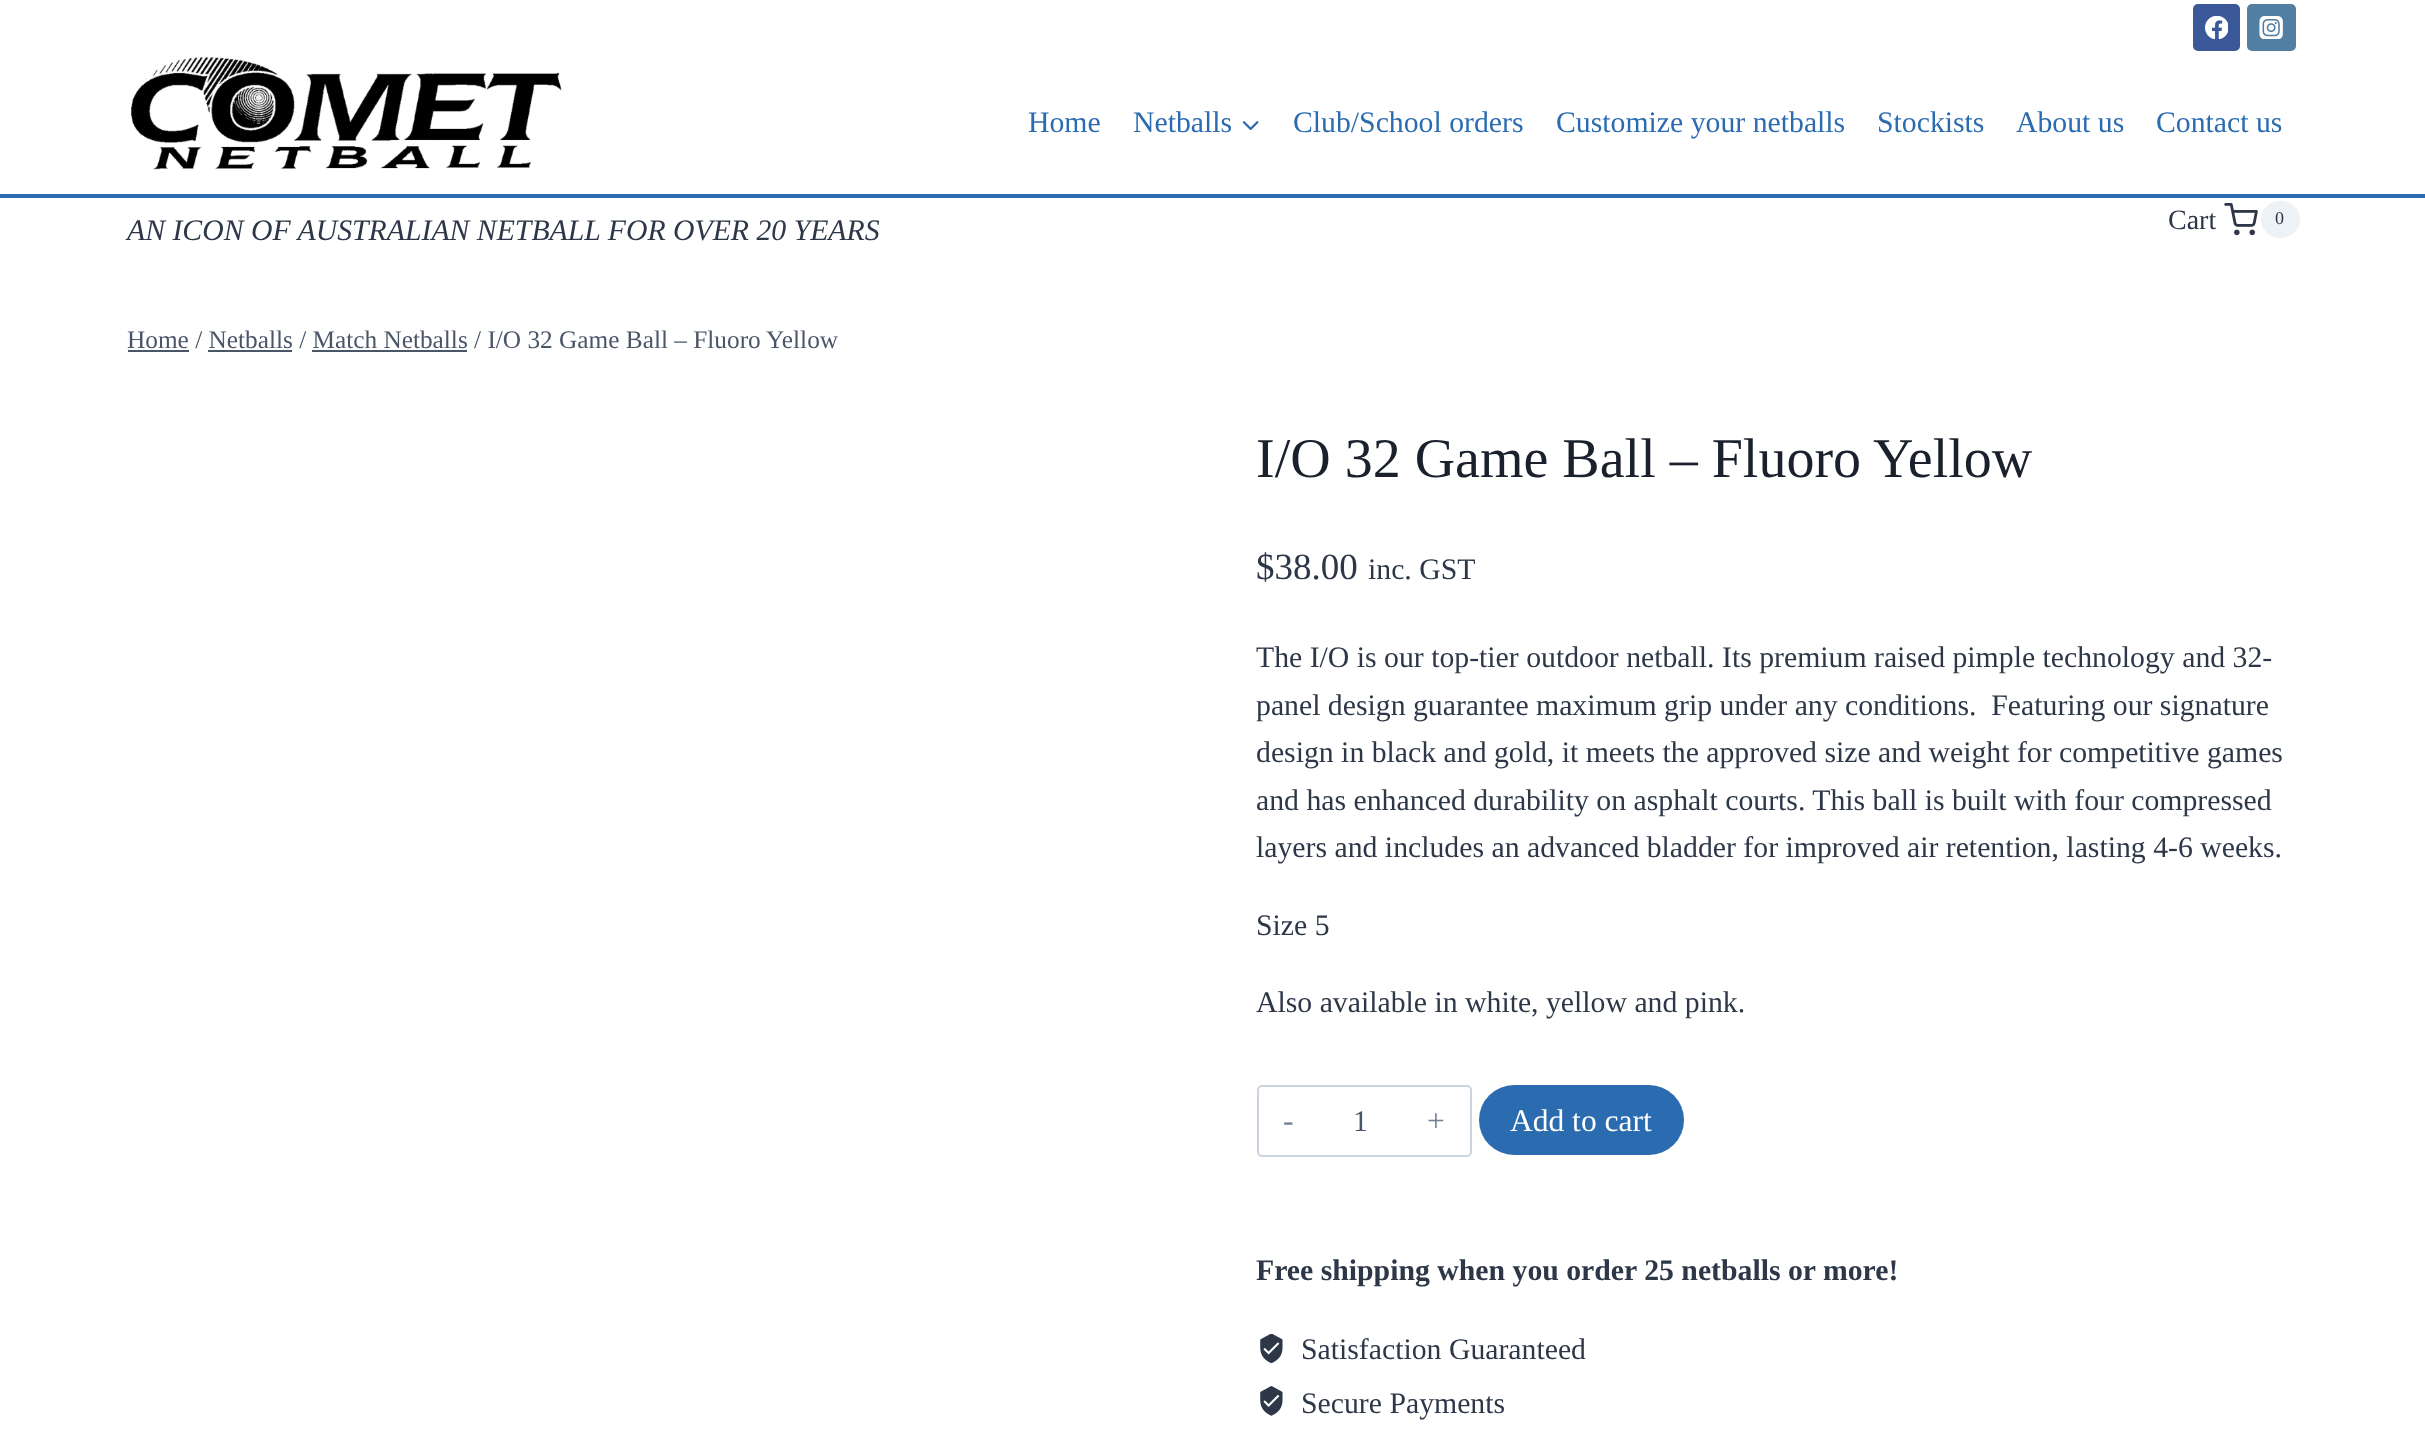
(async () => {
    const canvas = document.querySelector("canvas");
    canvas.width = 2425;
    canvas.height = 1445;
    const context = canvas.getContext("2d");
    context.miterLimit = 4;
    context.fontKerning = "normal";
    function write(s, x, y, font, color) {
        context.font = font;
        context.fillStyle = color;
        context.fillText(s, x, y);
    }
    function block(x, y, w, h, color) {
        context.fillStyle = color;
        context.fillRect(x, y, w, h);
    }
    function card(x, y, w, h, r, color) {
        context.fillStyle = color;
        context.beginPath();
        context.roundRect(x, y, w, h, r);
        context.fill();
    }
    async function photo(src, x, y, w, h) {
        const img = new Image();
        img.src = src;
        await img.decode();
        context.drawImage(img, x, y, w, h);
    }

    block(0, 0, 2425, 1445, "rgb(255, 255, 255)");
    card(2193, 4, 47, 47, 5, "rgb(59, 89, 152)");
    await photo("media/1.png", 2205, 16, 23, 23);
    card(2247, 4, 49, 47, 5, "rgb(81, 127, 164)");
    await photo("media/2.png", 2259, 16, 24, 23);
    block(0, 194, 2425, 4, "rgb(43, 108, 176)");
    await photo("media/3.png", 130, 57, 432, 113);
    write("Home", 1028, 132, "29.75px Liberation Serif", "rgb(43, 108, 176)");
    write("Netballs", 1133, 132, "29.75px Liberation Serif", "rgb(43, 108, 176)");
    await photo("media/4.png", 1242, 121, 17, 9);
    write("Club/School orders", 1293, 132, "29.75px Liberation Serif", "rgb(43, 108, 176)");
    write("Customize your netballs", 1556, 132, "29.75px Liberation Serif", "rgb(43, 108, 176)");
    write("Stockists", 1877, 132, "29.75px Liberation Serif", "rgb(43, 108, 176)");
    write("About us", 2016, 132, "29.75px Liberation Serif", "rgb(43, 108, 176)");
    write("Contact us", 2156, 132, "29.75px Liberation Serif", "rgb(43, 108, 176)");
    write("AN ICON OF AUSTRALIAN NETBALL FOR OVER 20 YEARS", 127, 240, "italic 29.75px Liberation Serif", "rgb(45, 55, 72)");
    write("Cart", 2168, 229, "28px Liberation Serif", "rgb(45, 55, 72)");
    await photo("media/5.png", 2224, 203, 34, 33);
    card(2261, 201, 39, 37, 18.5, "rgb(237, 242, 247)");
    write("0", 2275, 224, "18px Liberation Serif", "rgb(45, 55, 72)");
    write("Home / Netballs / Match Netballs / I/O 32 Game Ball – Fluoro Yellow", 127, 348, "25.3px Liberation Serif", "rgb(74, 85, 104)");
    block(128, 350, 61, 2, "rgb(74, 85, 104)");
    block(208, 350, 84, 2, "rgb(74, 85, 104)");
    block(312, 350, 155, 2, "rgb(74, 85, 104)");
    write("I/O 32 Game Ball – Fluoro Yellow", 1256, 477, "56px Liberation Serif", "rgb(26, 32, 44)");
    write("$38.00", 1256, 579, "37px Liberation Serif", "rgb(45, 55, 72)");
    write("inc. GST", 1368, 579, "29.75px Liberation Serif", "rgb(45, 55, 72)");
    write("The I/O is our top-tier outdoor netball. Its premium raised pimple technology and 32-", 1256, 667, "29.75px Liberation Serif", "rgb(45, 55, 72)");
    write("panel design guarantee maximum grip under any conditions.  Featuring our signature", 1256, 715, "29.75px Liberation Serif", "rgb(45, 55, 72)");
    write("design in black and gold, it meets the approved size and weight for competitive games", 1256, 762, "29.75px Liberation Serif", "rgb(45, 55, 72)");
    write("and has enhanced durability on asphalt courts. This ball is built with four compressed", 1256, 810, "29.75px Liberation Serif", "rgb(45, 55, 72)");
    write("layers and includes an advanced bladder for improved air retention, lasting 4-6 weeks.", 1256, 857, "29.75px Liberation Serif", "rgb(45, 55, 72)");
    write("Size 5", 1256, 935, "29.75px Liberation Serif", "rgb(45, 55, 72)");
    write("Also available in white, yellow and pink.", 1256, 1012, "29.75px Liberation Serif", "rgb(45, 55, 72)");
    context.beginPath();
    context.roundRect(1258, 1086, 213, 70, 4);
    context.strokeStyle = "rgb(203, 213, 224)";
    context.lineWidth = 2;
    context.stroke();
    write("-", 1283, 1131, "31.5px Liberation Serif", "rgb(113, 128, 150)");
    write("1", 1353, 1131, "29.75px Liberation Serif", "rgb(74, 85, 104)");
    write("+", 1427, 1131, "31.5px Liberation Serif", "rgb(113, 128, 150)");
    card(1479, 1085, 205, 70, 35, "rgb(43, 108, 176)");
    write("Add to cart", 1510, 1131, "31.5px Liberation Serif", "rgb(255, 255, 255)");
    write("Free shipping when you order 25 netballs or more!", 1256, 1280, "bold 29.75px Liberation Serif", "rgb(45, 55, 72)");
    await photo("media/6.png", 1260, 1334, 23, 29);
    write("Satisfaction Guaranteed", 1301, 1359, "29.75px Liberation Serif", "rgb(45, 55, 72)");
    await photo("media/7.png", 1260, 1386, 23, 30);
    write("Secure Payments", 1301, 1413, "29.75px Liberation Serif", "rgb(45, 55, 72)");
})();
